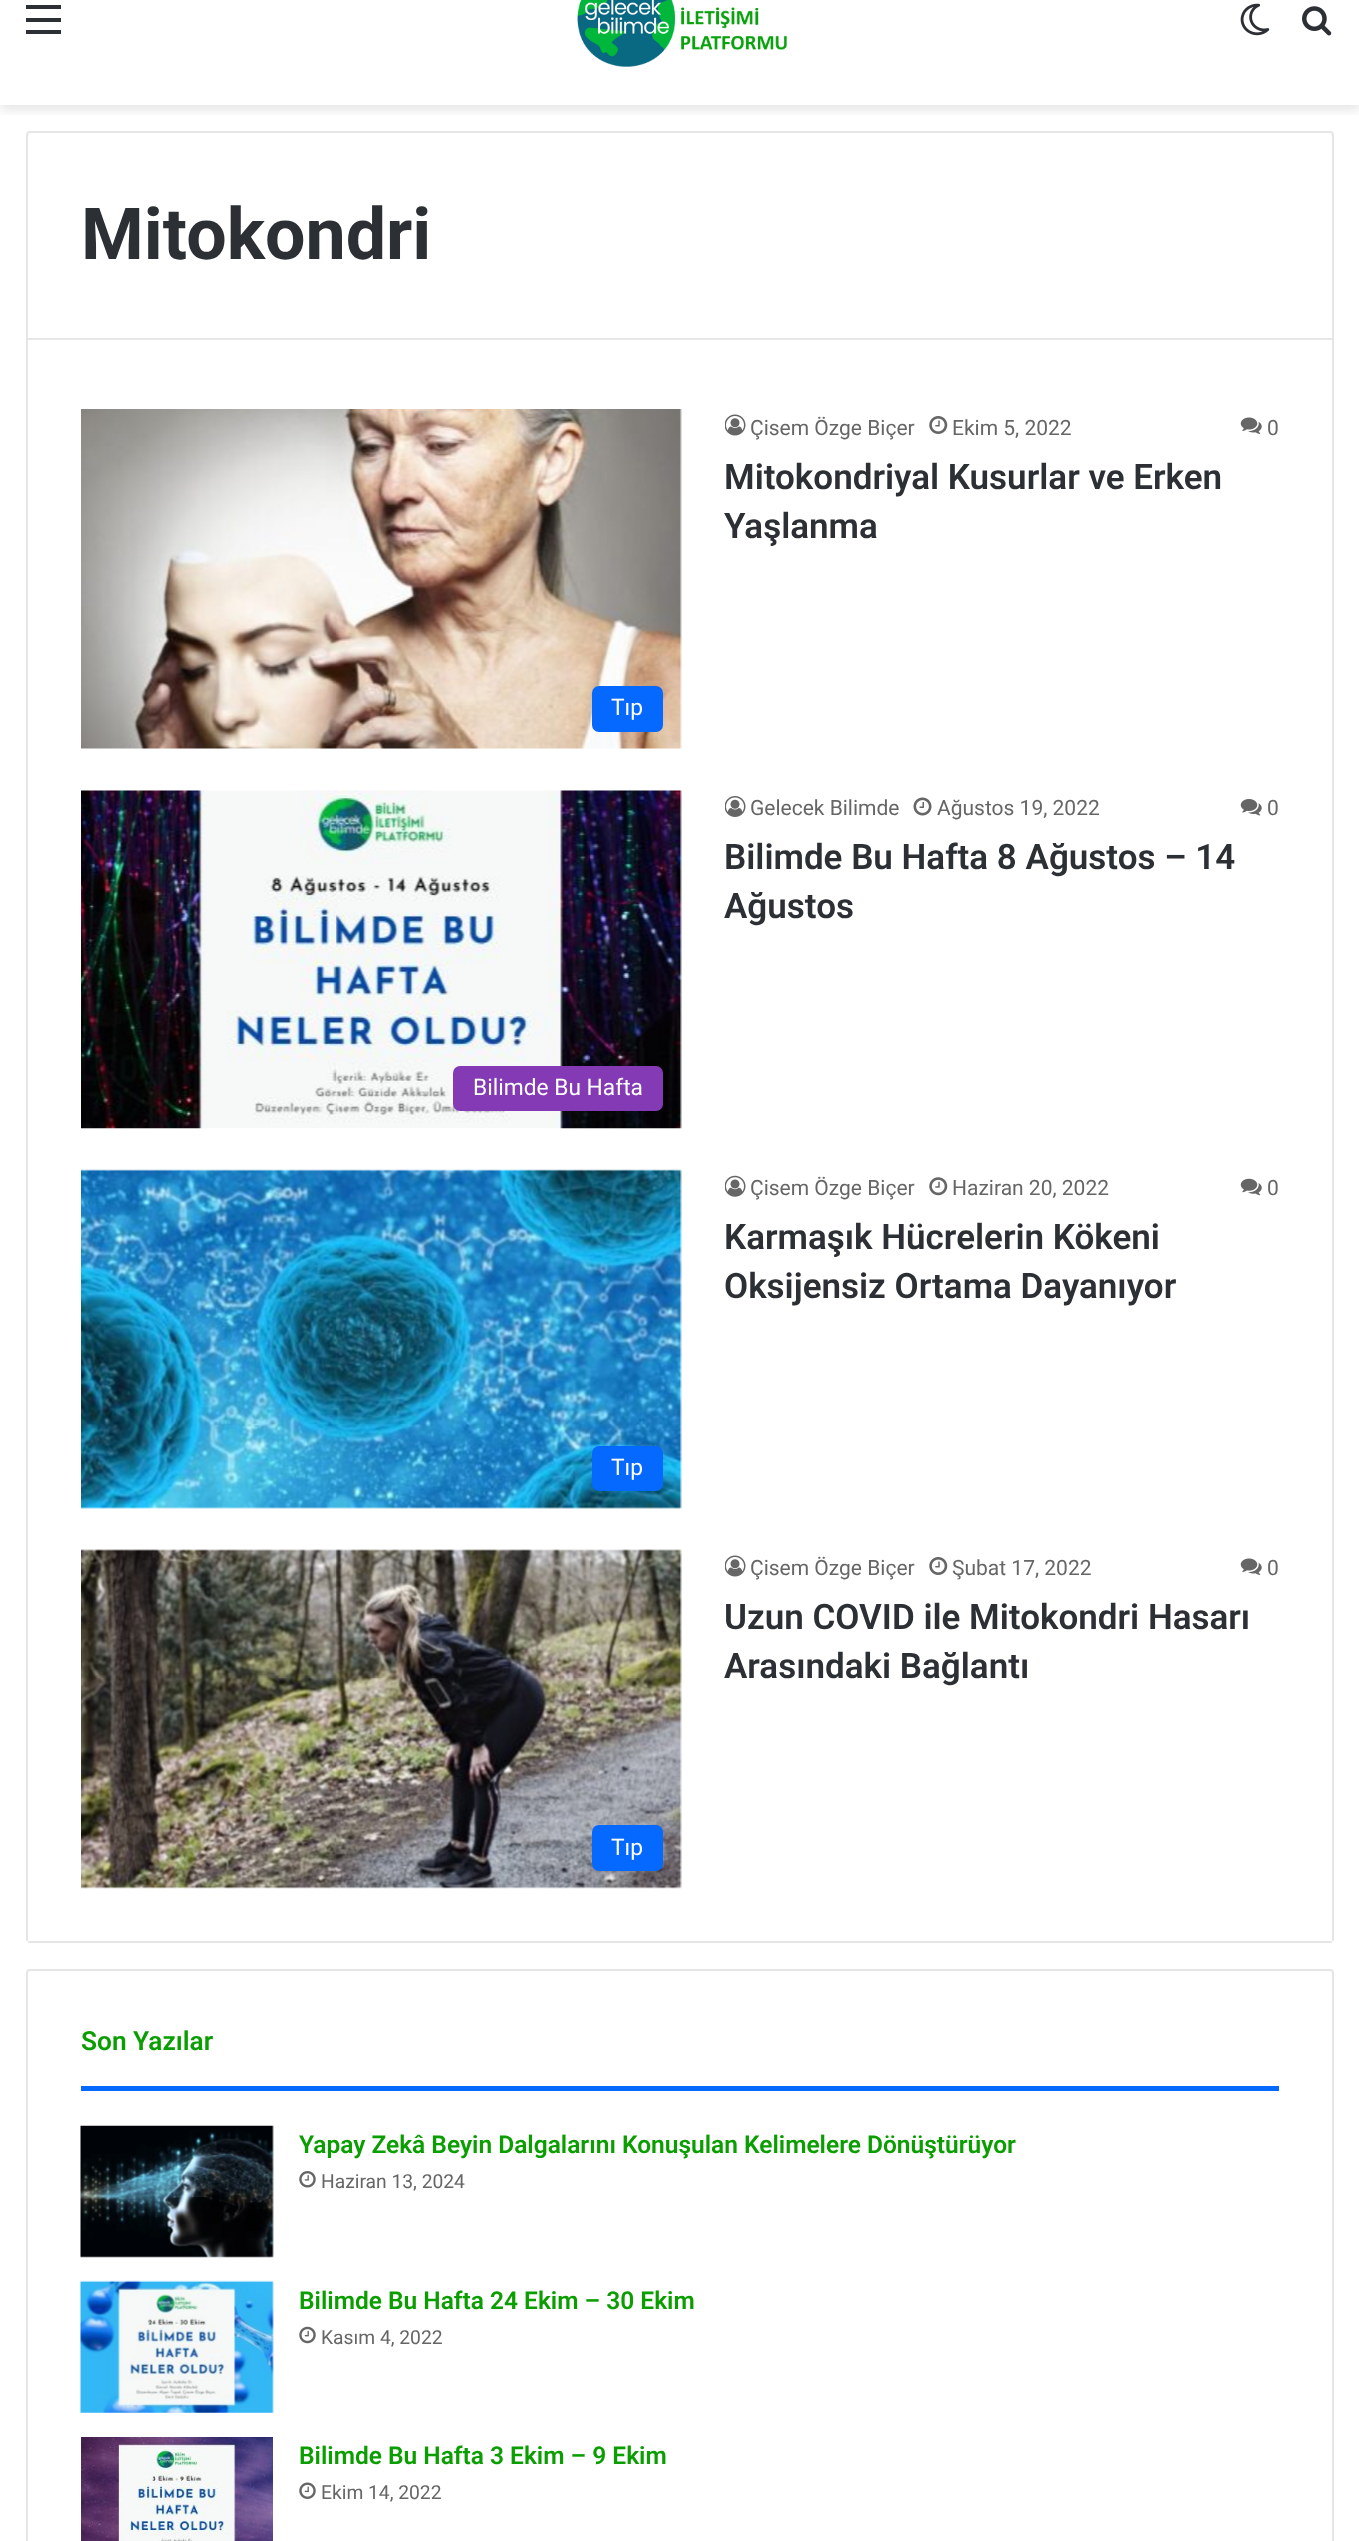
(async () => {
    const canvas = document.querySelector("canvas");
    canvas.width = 1359;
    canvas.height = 2541;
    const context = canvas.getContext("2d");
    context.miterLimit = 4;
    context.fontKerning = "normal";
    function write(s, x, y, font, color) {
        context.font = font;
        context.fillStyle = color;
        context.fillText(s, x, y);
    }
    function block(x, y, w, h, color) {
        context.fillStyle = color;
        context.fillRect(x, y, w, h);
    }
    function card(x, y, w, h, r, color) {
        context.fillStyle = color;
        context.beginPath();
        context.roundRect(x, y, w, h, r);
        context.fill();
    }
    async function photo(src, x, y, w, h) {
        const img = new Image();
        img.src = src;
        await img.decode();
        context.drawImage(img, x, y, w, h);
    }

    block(0, 0, 1359, 2541, "rgb(255, 255, 255)");
    context.save();
    context.beginPath();
    context.rect(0, 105, 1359, 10);
    context.clip();
    context.fillStyle = "rgba(0, 0, 0, 0.1)";
    context.filter = "blur(6px)";
    context.beginPath();
    context.rect(0, -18, 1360, 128);
    context.fill();
    context.filter = "none";
    context.restore();
    block(26, 18, 35, 4, "rgb(44, 47, 52)");
    block(26, 5, 35, 4, "rgb(44, 47, 52)");
    block(26, 30, 35, 4, "rgb(44, 47, 52)");
    await photo("media/1.png", 570, 0, 217, 67);
    await photo("media/2.png", 1240, 3, 30, 33);
    await photo("media/3.png", 1302, 6, 30, 30);
    context.beginPath();
    context.roundRect(27, 132, 1306, 207, [3, 3, 0, 0]);
    context.strokeStyle = "rgb(230, 230, 230)";
    context.lineWidth = 2;
    context.stroke();
    write("Mitokondri", 81, 259, "bold 71.75px Roboto", "rgb(44, 47, 52)");
    block(1332, 340, 2, 1601, "rgb(230, 230, 230)");
    block(28, 1941, 1304, 2, "rgb(230, 230, 230)");
    block(26, 340, 2, 1601, "rgb(230, 230, 230)");
    await photo("media/4.png", 725, 414, 21, 22);
    write("Çisem Özge Biçer", 750, 435, "21px Roboto", "rgb(102, 102, 102)");
    await photo("media/5.png", 929, 416, 19, 18);
    write("Ekim 5, 2022", 952, 435, "21px Roboto", "rgb(102, 102, 102)");
    await photo("media/6.png", 1240, 417, 22, 17);
    write("0", 1267, 435, "21px Roboto", "rgb(102, 102, 102)");
    write("Mitokondriyal Kusurlar ve Erken", 724, 489, "600 35px Roboto", "rgb(44, 47, 52)");
    write("Yaşlanma", 724, 538, "600 35px Roboto", "rgb(44, 47, 52)");
    await photo("media/7.png", 81, 409, 601, 340);
    card(592, 686, 71, 46, 7, "rgb(6, 105, 255)");
    write("Tıp", 611, 715, "22.75px Roboto", "rgb(255, 255, 255)");
    await photo("media/8.png", 725, 796, 21, 21);
    write("Gelecek Bilimde", 750, 815, "21px Roboto", "rgb(102, 102, 102)");
    await photo("media/9.png", 913, 797, 19, 19);
    write("Ağustos 19, 2022", 937, 815, "21px Roboto", "rgb(102, 102, 102)");
    await photo("media/10.png", 1240, 799, 22, 17);
    write("0", 1267, 815, "21px Roboto", "rgb(102, 102, 102)");
    write("Bilimde Bu Hafta 8 Ağustos – 14", 724, 869, "600 35px Roboto", "rgb(44, 47, 52)");
    write("Ağustos", 724, 918, "600 35px Roboto", "rgb(44, 47, 52)");
    await photo("media/11.png", 81, 790, 601, 339);
    card(453, 1066, 210, 45, 7, "rgb(131, 58, 180)");
    write("Bilimde Bu Hafta", 473, 1095, "22.75px Roboto", "rgb(255, 255, 255)");
    await photo("media/12.png", 725, 1175, 21, 22);
    write("Çisem Özge Biçer", 750, 1195, "21px Roboto", "rgb(102, 102, 102)");
    await photo("media/13.png", 929, 1177, 19, 19);
    write("Haziran 20, 2022", 952, 1195, "21px Roboto", "rgb(102, 102, 102)");
    await photo("media/14.png", 1240, 1178, 22, 18);
    write("0", 1267, 1195, "21px Roboto", "rgb(102, 102, 102)");
    write("Karmaşık Hücrelerin Kökeni", 724, 1249, "600 35px Roboto", "rgb(44, 47, 52)");
    write("Oksijensiz Ortama Dayanıyor", 724, 1298, "600 35px Roboto", "rgb(44, 47, 52)");
    await photo("media/15.png", 81, 1169, 601, 340);
    card(592, 1446, 71, 45, 7, "rgb(6, 105, 255)");
    write("Tıp", 611, 1475, "22.75px Roboto", "rgb(255, 255, 255)");
    await photo("media/4.png", 725, 1555, 21, 22);
    write("Çisem Özge Biçer", 750, 1575, "21px Roboto", "rgb(102, 102, 102)");
    await photo("media/5.png", 929, 1557, 19, 18);
    write("Şubat 17, 2022", 952, 1575, "21px Roboto", "rgb(102, 102, 102)");
    await photo("media/6.png", 1240, 1558, 22, 17);
    write("0", 1267, 1575, "21px Roboto", "rgb(102, 102, 102)");
    write("Uzun COVID ile Mitokondri Hasarı", 724, 1629, "600 35px Roboto", "rgb(44, 47, 52)");
    write("Arasındaki Bağlantı", 724, 1678, "600 35px Roboto", "rgb(44, 47, 52)");
    await photo("media/16.png", 81, 1549, 601, 340);
    card(592, 1825, 71, 46, 7, "rgb(6, 105, 255)");
    write("Tıp", 611, 1855, "22.75px Roboto", "rgb(255, 255, 255)");
    context.beginPath();
    context.roundRect(27, 1970, 1306, 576, 3);
    context.stroke();
    block(81, 2086, 1198, 5, "rgb(6, 105, 255)");
    write("Son Yazılar", 81, 2050, "600 26.25px Roboto", "rgb(10, 158, 1)");
    await photo("media/17.png", 80, 2125, 194, 133);
    write("Yapay Zekâ Beyin Dalgalarını Konuşulan Kelimelere Dönüştürüyor", 299, 2153, "600 24.5px Roboto", "rgb(10, 158, 1)");
    await photo("media/18.png", 299, 2171, 17, 17);
    write("Haziran 13, 2024", 321, 2188, "19.25px Roboto", "rgb(102, 102, 102)");
    await photo("media/19.png", 80, 2280, 194, 133);
    write("Bilimde Bu Hafta 24 Ekim – 30 Ekim", 299, 2309, "600 24.5px Roboto", "rgb(10, 158, 1)");
    await photo("media/20.png", 299, 2326, 17, 18);
    write("Kasım 4, 2022", 321, 2344, "19.25px Roboto", "rgb(102, 102, 102)");
    await photo("media/21.png", 81, 2437, 192, 104);
    write("Bilimde Bu Hafta 3 Ekim – 9 Ekim", 299, 2464, "600 24.5px Roboto", "rgb(10, 158, 1)");
    await photo("media/22.png", 299, 2482, 17, 17);
    write("Ekim 14, 2022", 321, 2499, "19.25px Roboto", "rgb(102, 102, 102)");
})();
